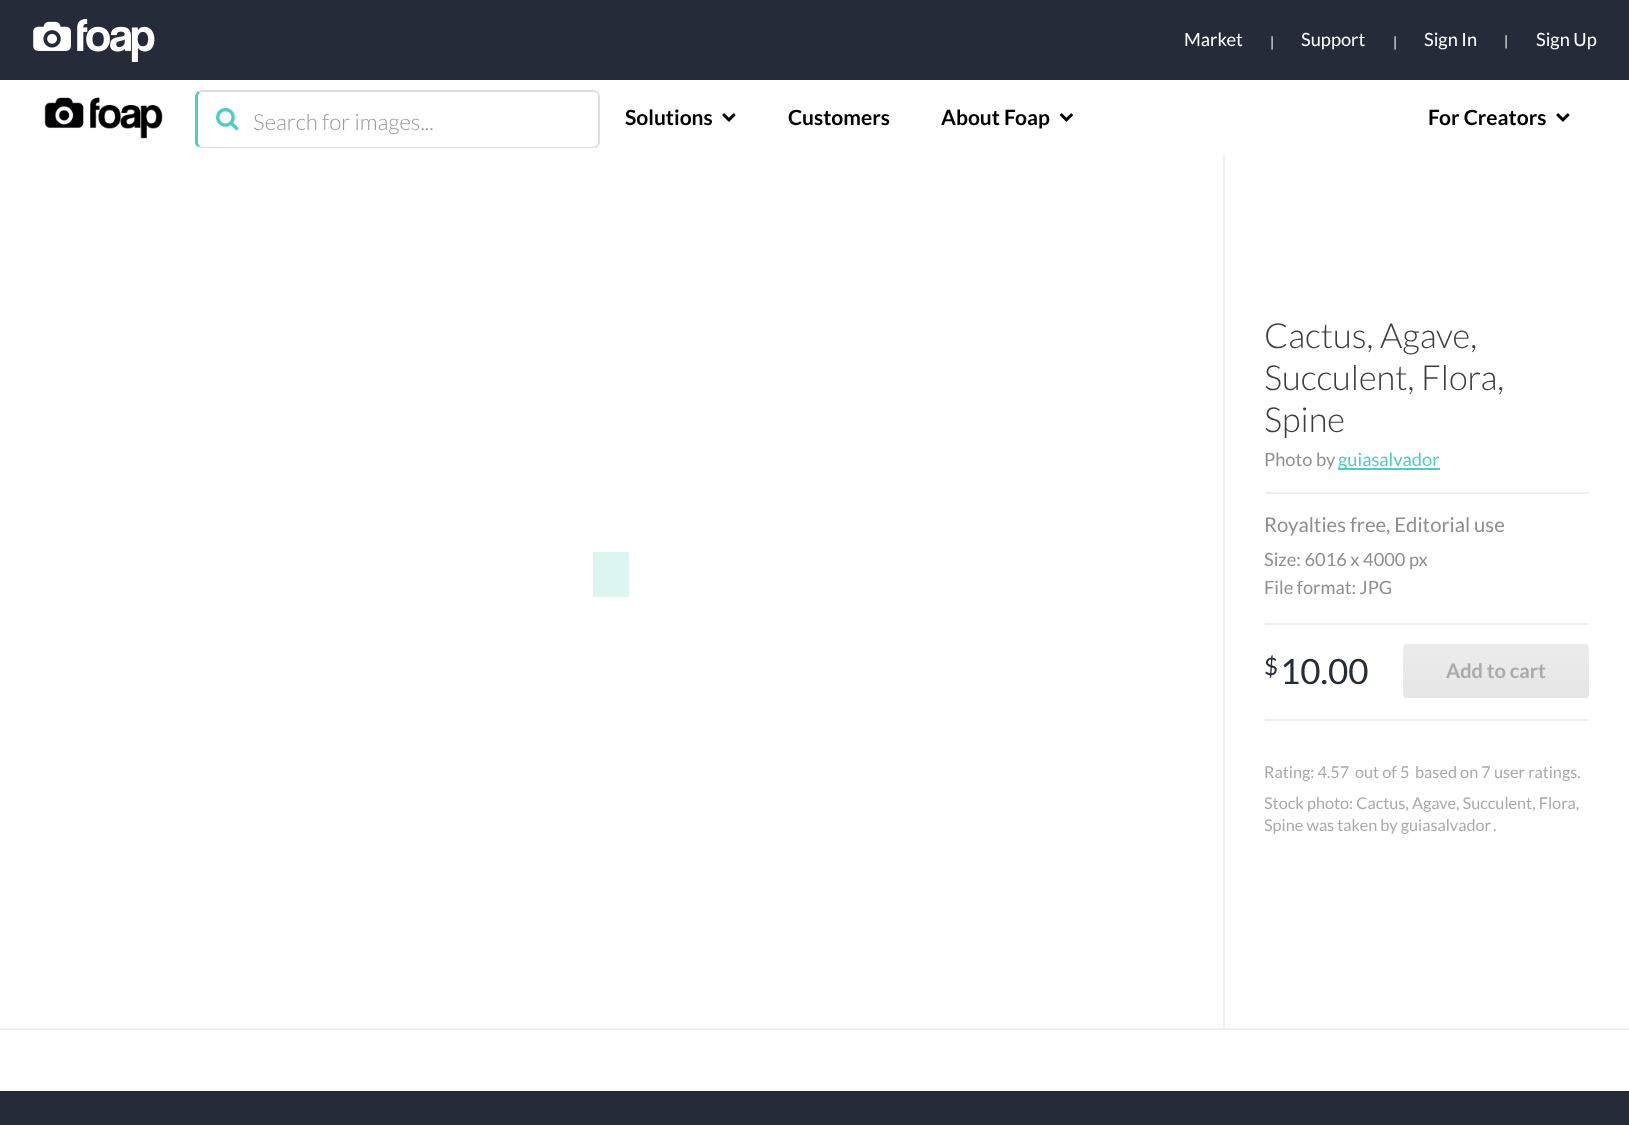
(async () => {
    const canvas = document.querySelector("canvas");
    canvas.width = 1629;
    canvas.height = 1125;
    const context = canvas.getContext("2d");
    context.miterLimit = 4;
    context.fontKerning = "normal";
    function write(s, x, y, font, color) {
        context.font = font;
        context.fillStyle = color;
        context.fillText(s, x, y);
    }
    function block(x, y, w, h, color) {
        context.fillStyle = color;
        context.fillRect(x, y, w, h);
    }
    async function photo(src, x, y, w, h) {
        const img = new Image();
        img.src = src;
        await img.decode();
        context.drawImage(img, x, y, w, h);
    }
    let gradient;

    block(0, 0, 1629, 1125, "rgb(255, 255, 255)");
    block(0, 0, 1629, 80, "rgb(38, 43, 57)");
    await photo("media/1.png", 33, 18, 122, 44);
    write("Market", 1184, 46, "18.25px Lato", "rgb(255, 255, 255)");
    write("|", 1270, 47, "14px Lato", "rgb(255, 255, 255)");
    write("Support", 1301, 46, "18.25px Lato", "rgb(255, 255, 255)");
    write("|", 1393, 47, "14px Lato", "rgb(255, 255, 255)");
    write("Sign In", 1424, 46, "18.25px Lato", "rgb(255, 255, 255)");
    write("|", 1504, 46, "14px Lato", "rgb(255, 255, 255)");
    write("Sign Up", 1536, 46, "18.25px Lato", "rgb(255, 255, 255)");
    await photo("media/2.png", 44, 97, 119, 42);
    await photo("media/3.png", 216, 107, 23, 24);
    context.fillStyle = "rgb(221, 221, 221)";
    context.beginPath();
    context.moveTo(202, 90);
    context.bezierCurveTo(200, 90, 199, 91, 198, 91);
    context.lineTo(200, 93);
    context.lineTo(202, 92);
    context.lineTo(593, 92);
    context.bezierCurveTo(594, 92, 596, 92, 597, 93);
    context.lineTo(598, 92);
    context.bezierCurveTo(597, 91, 595, 90, 593, 90);
    context.closePath();
    context.fill();
    context.beginPath();
    context.moveTo(600, 142);
    context.lineTo(600, 97);
    context.bezierCurveTo(600, 95, 599, 93, 598, 92);
    context.lineTo(597, 93);
    context.bezierCurveTo(598, 94, 598, 96, 598, 97);
    context.lineTo(598, 142);
    context.bezierCurveTo(598, 143, 598, 145, 597, 145);
    context.lineTo(598, 146);
    context.bezierCurveTo(599, 146, 600, 144, 600, 142);
    context.closePath();
    context.fill();
    context.beginPath();
    context.moveTo(598, 146);
    context.bezierCurveTo(597, 148, 595, 148, 593, 148);
    context.lineTo(202, 148);
    context.bezierCurveTo(200, 148, 199, 148, 198, 147);
    context.lineTo(200, 146);
    context.lineTo(202, 147);
    context.lineTo(593, 147);
    context.bezierCurveTo(594, 147, 596, 146, 597, 145);
    context.closePath();
    context.fill();
    context.fillStyle = "rgb(78, 205, 196)";
    context.beginPath();
    context.moveTo(195, 97);
    context.lineTo(195, 142);
    context.bezierCurveTo(195, 144, 196, 146, 198, 147);
    context.lineTo(200, 146);
    context.bezierCurveTo(199, 145, 198, 144, 198, 142);
    context.lineTo(198, 97);
    context.bezierCurveTo(198, 95, 199, 93, 200, 93);
    context.lineTo(198, 91);
    context.bezierCurveTo(196, 93, 195, 95, 195, 97);
    context.closePath();
    context.fill();
    write("Search for images...", 253, 130, "300 22.25px Lato", "rgb(153, 153, 153)");
    write("Solutions", 625, 125, "bold 21px Lato", "rgb(0, 0, 0)");
    await photo("media/4.png", 722, 113, 14, 9);
    write("Customers", 788, 125, "bold 21px Lato", "rgb(0, 0, 0)");
    write("About Foap", 941, 125, "bold 21px Lato", "rgb(0, 0, 0)");
    await photo("media/5.png", 1059, 113, 14, 9);
    write("For Creators", 1428, 125, "bold 21px Lato", "rgb(0, 0, 0)");
    await photo("media/4.png", 1556, 113, 14, 9);
    block(0, 1028, 1629, 2, "rgb(238, 238, 238)");
    block(593, 552, 36, 45, "rgb(220, 245, 243)");
    block(1223, 155, 2, 873, "rgb(238, 238, 238)");
    block(1265, 492, 324, 2, "rgb(238, 238, 238)");
    write("Cactus, Agave,", 1264, 348, "300 34.5px Lato", "rgb(61, 61, 61)");
    write("Succulent, Flora,", 1264, 390, "300 34.5px Lato", "rgb(61, 61, 61)");
    write("Spine", 1264, 432, "300 34.5px Lato", "rgb(61, 61, 61)");
    write("Photo by", 1264, 466, "18.25px Lato", "rgb(143, 143, 143)");
    block(1338, 468, 102, 2, "rgb(78, 205, 196)");
    write("guiasalvador", 1338, 466, "18.25px Lato", "rgb(78, 205, 196)");
    write("Royalties free, Editorial use", 1264, 532, "20.25px Lato", "rgb(143, 143, 143)");
    write("Size: 6016 x 4000 px", 1264, 566, "18.25px Lato", "rgb(143, 143, 143)");
    write("File format: JPG", 1264, 594, "18.25px Lato", "rgb(143, 143, 143)");
    block(1265, 623, 324, 2, "rgb(238, 238, 238)");
    write("$", 1264, 675, "24px Lato", "rgb(38, 43, 57)");
    write("10.00", 1280, 684, "35px Lato", "rgb(38, 43, 57)");
    gradient = context.createLinearGradient(1496, 697, 1496, 643);
    gradient.addColorStop(0, "rgb(230, 230, 230)");
    gradient.addColorStop(1, "rgb(236, 236, 236)");
    context.fillStyle = gradient;
    context.beginPath();
    context.roundRect(1403, 644, 186, 54, 4);
    context.fill();
    write("Add to cart", 1446, 678, "bold 20px Lato", "rgb(170, 170, 170)");
    block(1265, 719, 324, 2, "rgb(238, 238, 238)");
    write("Rating: 4.57", 1264, 778, "16.25px Lato", "rgb(170, 170, 170)");
    write("out of 5", 1355, 778, "16.25px Lato", "rgb(170, 170, 170)");
    write("based on 7 user ratings.", 1415, 778, "16.25px Lato", "rgb(170, 170, 170)");
    context.save();
    context.beginPath();
    context.rect(1265, 720, 324, 117);
    context.clip();
    write("Stock photo: Cactus, Agave, Succulent, Flora,", 1264, 809, "16.25px Lato", "rgb(170, 170, 170)");
    write("Spine was taken by guiasalvador", 1264, 831, "16.25px Lato", "rgb(170, 170, 170)");
    context.restore();
    write(".", 1493, 831, "16.25px Lato", "rgb(170, 170, 170)");
    block(0, 1091, 1629, 34, "rgb(38, 43, 57)");
})();
